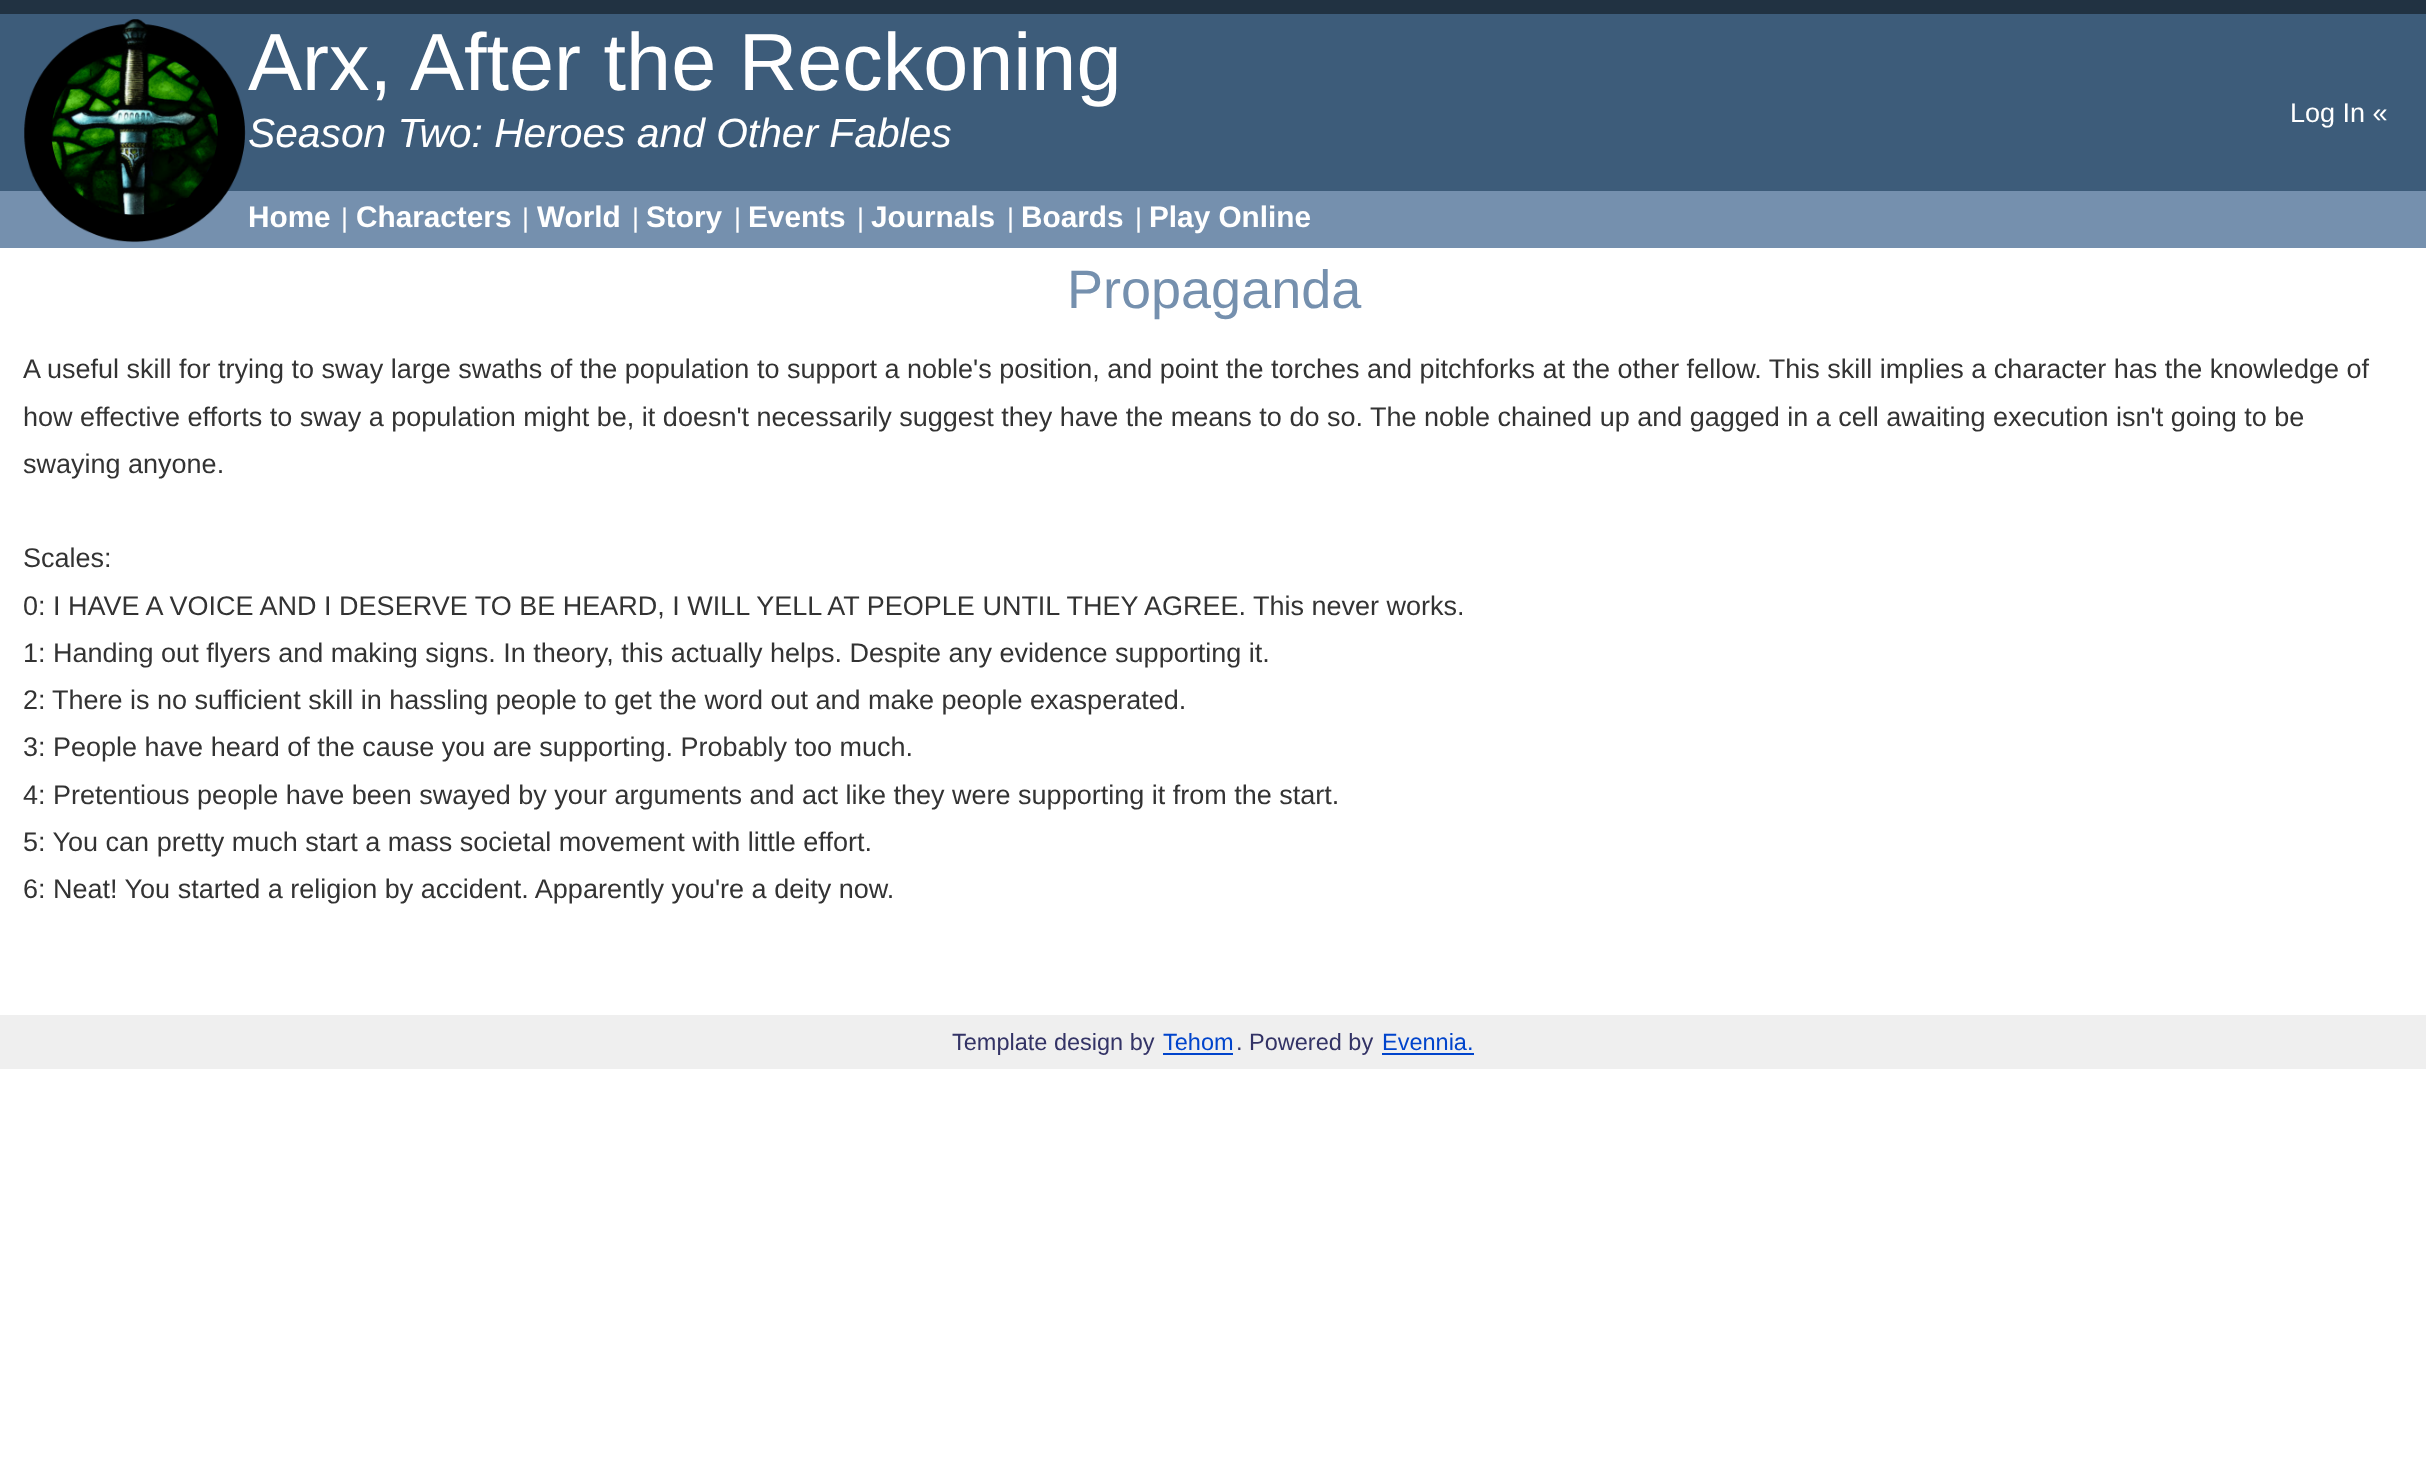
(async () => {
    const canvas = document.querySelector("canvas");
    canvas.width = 2426;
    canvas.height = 1479;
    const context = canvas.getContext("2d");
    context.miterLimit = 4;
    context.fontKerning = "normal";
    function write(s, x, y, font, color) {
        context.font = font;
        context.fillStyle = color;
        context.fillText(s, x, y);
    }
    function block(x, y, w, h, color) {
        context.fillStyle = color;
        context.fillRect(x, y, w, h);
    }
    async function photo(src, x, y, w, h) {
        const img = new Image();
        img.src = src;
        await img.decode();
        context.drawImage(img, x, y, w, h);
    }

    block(0, 0, 2426, 1479, "rgb(255, 255, 255)");
    block(0, 0, 2426, 14, "rgb(33, 50, 66)");
    block(0, 14, 2426, 177, "rgb(61, 92, 122)");
    block(0, 191, 2426, 57, "rgb(117, 144, 174)");
    await photo("media/1.png", 24, 19, 222, 224);
    write("Arx, After the Reckoning", 248, 90, "81px Liberation Sans", "rgb(255, 255, 255)");
    write("Season Two: Heroes and Other Fables", 248, 147, "italic 40.75px Liberation Sans", "rgb(255, 255, 255)");
    write("Log In «", 2290, 122, "27px Liberation Sans", "rgb(255, 255, 255)");
    write("Home", 248, 227, "bold 29.75px Liberation Sans", "rgb(255, 255, 255)");
    write("|", 341, 227, "27px Liberation Sans", "rgb(255, 255, 255)");
    write("Characters", 356, 227, "bold 29.75px Liberation Sans", "rgb(255, 255, 255)");
    write("|", 522, 227, "27px Liberation Sans", "rgb(255, 255, 255)");
    write("World", 537, 227, "bold 29.75px Liberation Sans", "rgb(255, 255, 255)");
    write("|", 632, 227, "27px Liberation Sans", "rgb(255, 255, 255)");
    write("Story", 646, 227, "bold 29.75px Liberation Sans", "rgb(255, 255, 255)");
    write("|", 734, 227, "27px Liberation Sans", "rgb(255, 255, 255)");
    write("Events", 748, 227, "bold 29.75px Liberation Sans", "rgb(255, 255, 255)");
    write("|", 857, 227, "27px Liberation Sans", "rgb(255, 255, 255)");
    write("Journals", 871, 227, "bold 29.75px Liberation Sans", "rgb(255, 255, 255)");
    write("|", 1007, 227, "27px Liberation Sans", "rgb(255, 255, 255)");
    write("Boards", 1021, 227, "bold 29.75px Liberation Sans", "rgb(255, 255, 255)");
    write("|", 1135, 227, "27px Liberation Sans", "rgb(255, 255, 255)");
    write("Play Online", 1149, 227, "bold 29.75px Liberation Sans", "rgb(255, 255, 255)");
    write("Propaganda", 1067, 308, "54px Liberation Sans", "rgb(117, 144, 174)");
    write("A useful skill for trying to sway large swaths of the population to support a noble's position, and point the torches and pitchforks at the other fellow. This skill implies a character has the knowledge of", 23, 378, "27px Liberation Sans", "rgb(51, 51, 51)");
    write("how effective efforts to sway a population might be, it doesn't necessarily suggest they have the means to do so. The noble chained up and gagged in a cell awaiting execution isn't going to be", 23, 426, "27px Liberation Sans", "rgb(51, 51, 51)");
    write("swaying anyone.", 23, 473, "27px Liberation Sans", "rgb(51, 51, 51)");
    write("Scales:", 23, 567, "27px Liberation Sans", "rgb(51, 51, 51)");
    write("0: I HAVE A VOICE AND I DESERVE TO BE HEARD, I WILL YELL AT PEOPLE UNTIL THEY AGREE. This never works.", 23, 615, "27px Liberation Sans", "rgb(51, 51, 51)");
    write("1: Handing out flyers and making signs. In theory, this actually helps. Despite any evidence supporting it.", 23, 662, "27px Liberation Sans", "rgb(51, 51, 51)");
    write("2:", 23, 709, "27px Liberation Sans", "rgb(51, 51, 51)");
    write("There is no sufficient skill in hassling people to get the word out and make people exasperated.", 52, 709, "27px Liberation Sans", "rgb(51, 51, 51)");
    write("3: People have heard of the cause you are supporting. Probably too much.", 23, 756, "27px Liberation Sans", "rgb(51, 51, 51)");
    write("4: Pretentious people have been swayed by your arguments and act like they were supporting it from the start.", 23, 804, "27px Liberation Sans", "rgb(51, 51, 51)");
    write("5: You can pretty much start a mass societal movement with little effort.", 23, 851, "27px Liberation Sans", "rgb(51, 51, 51)");
    write("6: Neat! You started a religion by accident. Apparently you're a deity now.", 23, 898, "27px Liberation Sans", "rgb(51, 51, 51)");
    block(0, 1015, 2426, 54, "rgb(239, 239, 239)");
    write("Template design by", 952, 1050, "23.5px Liberation Sans", "rgb(51, 51, 102)");
    write("Tehom", 1163, 1050, "23.5px Liberation Sans", "rgb(0, 68, 204)");
    block(1163, 1053, 70, 2, "rgb(0, 68, 204)");
    write(". Powered by", 1236, 1050, "23.5px Liberation Sans", "rgb(51, 51, 102)");
    write("Evennia.", 1382, 1050, "23.5px Liberation Sans", "rgb(0, 68, 204)");
    block(1382, 1053, 92, 2, "rgb(0, 68, 204)");
})();
